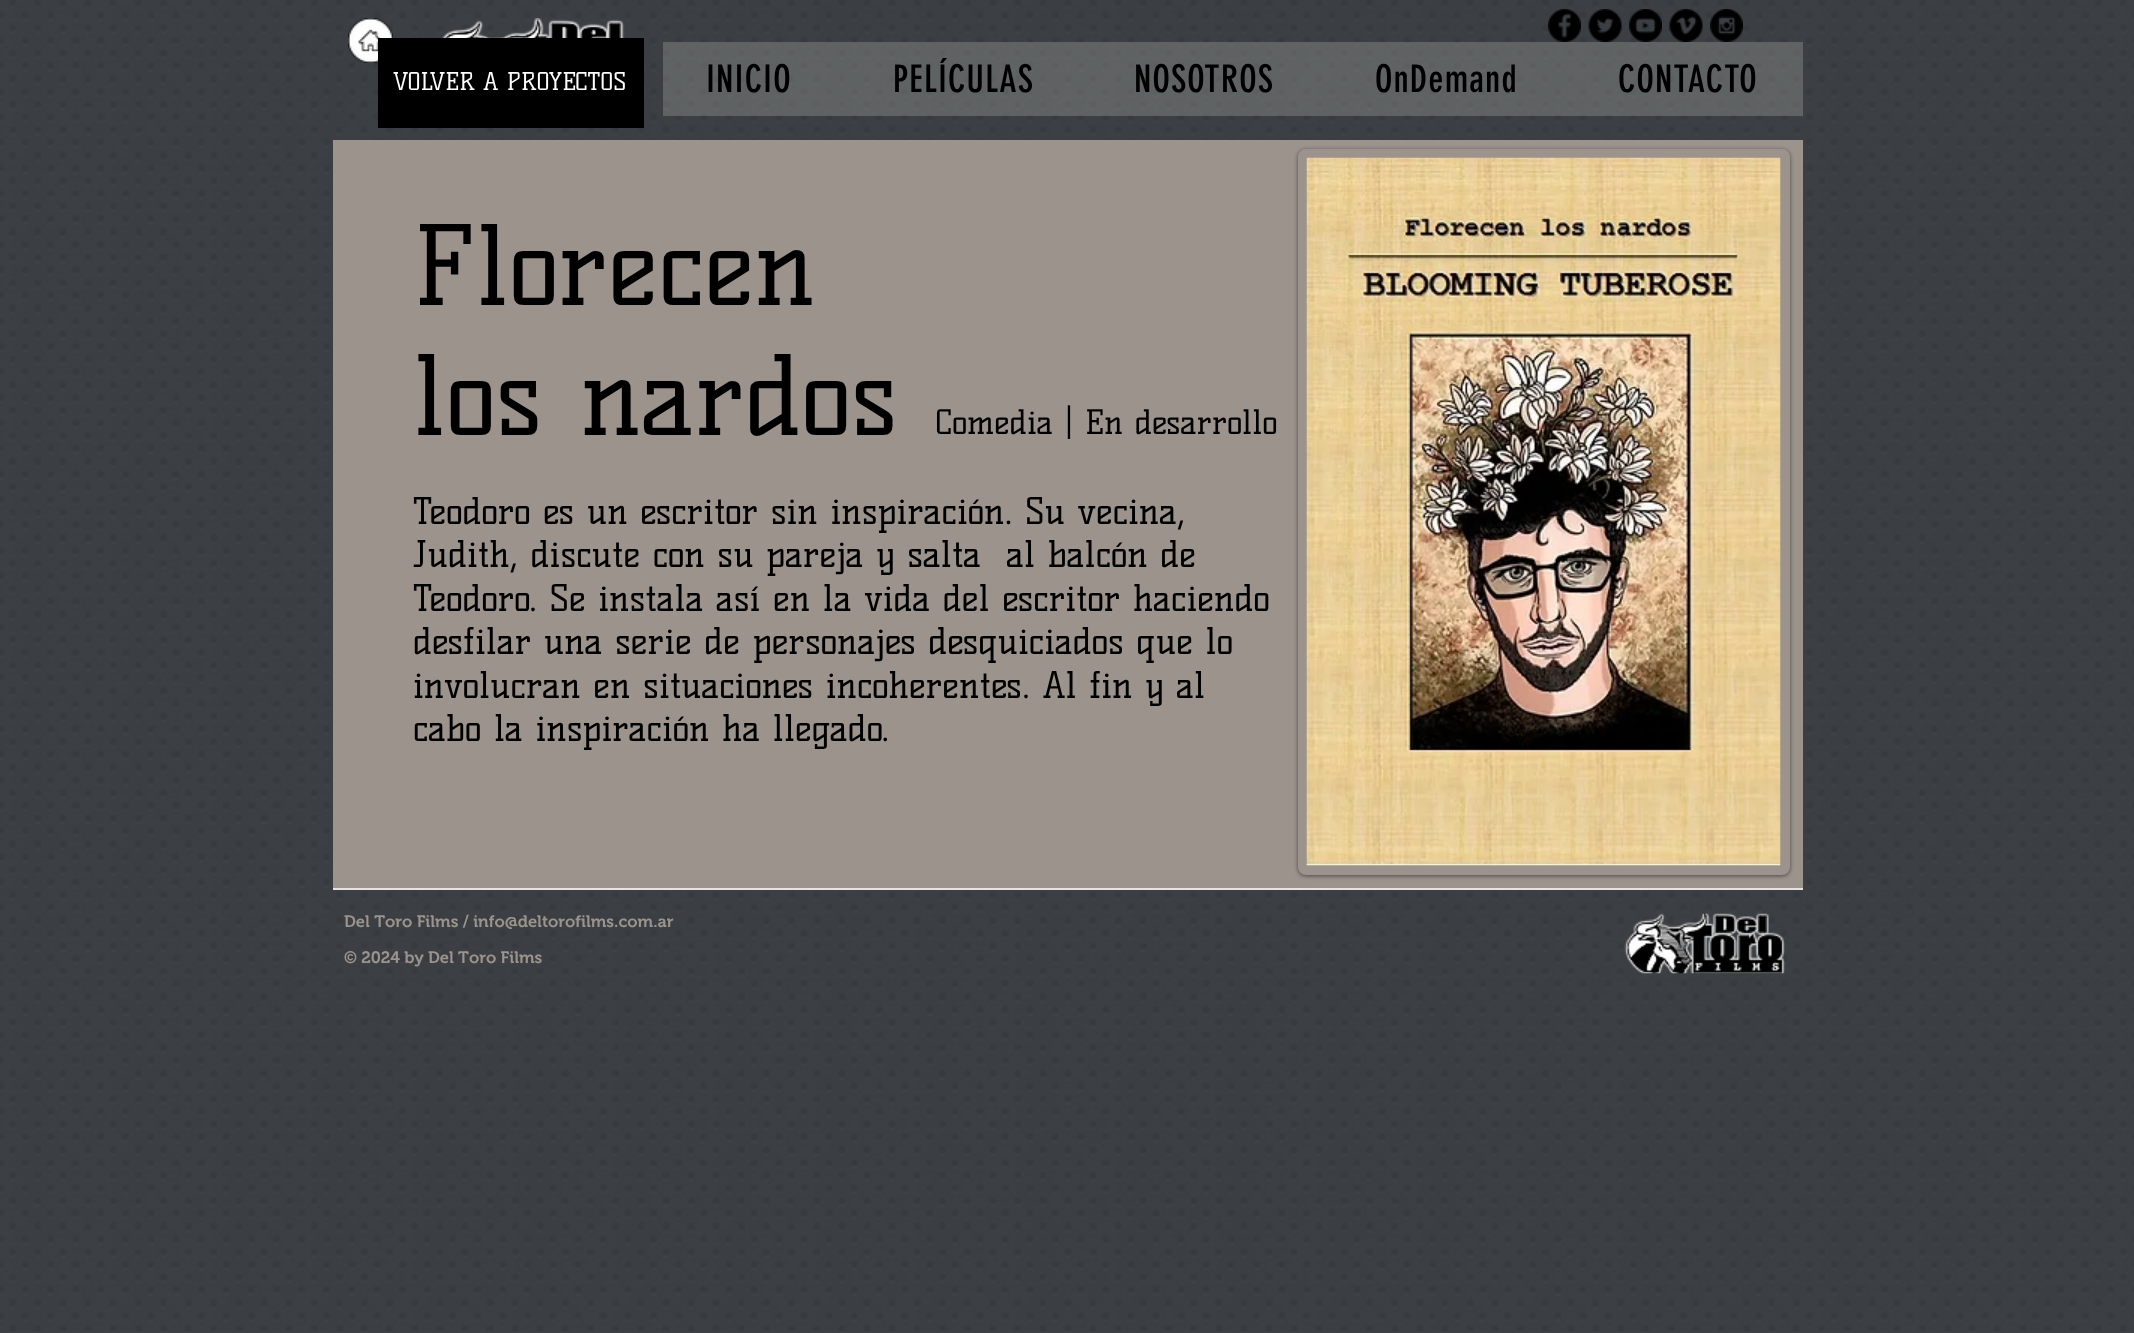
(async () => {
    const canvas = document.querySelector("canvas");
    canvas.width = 2134;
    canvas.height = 1333;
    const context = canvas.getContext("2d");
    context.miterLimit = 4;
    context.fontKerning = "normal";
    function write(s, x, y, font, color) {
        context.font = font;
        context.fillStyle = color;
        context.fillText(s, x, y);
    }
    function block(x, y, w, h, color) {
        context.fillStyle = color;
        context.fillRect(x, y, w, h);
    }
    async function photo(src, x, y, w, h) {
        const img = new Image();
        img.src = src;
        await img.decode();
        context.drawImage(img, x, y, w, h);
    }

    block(0, 0, 2134, 1333, "rgb(61, 65, 70)");
    await photo("media/1.png", 0, 0, 2134, 1331);
    await photo("media/2.png", 348, 18, 45, 45);
    await photo("media/3.png", 442, 18, 203, 81);
    await photo("media/4.png", 1548, 9, 33, 33);
    await photo("media/5.png", 1588, 9, 34, 33);
    await photo("media/6.png", 1629, 9, 33, 33);
    await photo("media/7.png", 1669, 9, 34, 33);
    await photo("media/8.png", 1710, 9, 33, 33);
    block(663, 42, 1140, 74, "rgba(255, 248, 240, 0.19)");
    context.letterSpacing = "1.1px";
    write("INICIO", 706, 92, "37.5px 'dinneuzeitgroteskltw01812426'", "rgb(0, 0, 0)");
    write("PELÍCULAS", 893, 92, "37.5px 'dinneuzeitgroteskltw01812426'", "rgb(0, 0, 0)");
    write("NOSOTROS", 1134, 92, "37.5px 'dinneuzeitgroteskltw01812426'", "rgb(0, 0, 0)");
    write("OnDemand", 1375, 92, "37.5px 'dinneuzeitgroteskltw01812426'", "rgb(0, 0, 0)");
    write("CONTACTO", 1618, 92, "37.5px 'dinneuzeitgroteskltw01812426'", "rgb(0, 0, 0)");
    block(378, 38, 266, 90, "rgb(0, 0, 0)");
    context.letterSpacing = "0px";
    write("VOLVER A PROYECTOS", 393, 90, "24px Kelly Slab", "rgb(255, 255, 255)");
    block(333, 140, 1470, 748, "rgb(155, 147, 140)");
    write("Florecen", 413, 305, "108px Kelly Slab", "rgb(0, 0, 0)");
    write("los nardos", 413, 435, "108px Kelly Slab", "rgb(0, 0, 0)");
    write("Comedia | En desarrollo", 935, 434, "33px Kelly Slab", "rgb(0, 0, 0)");
    context.fillStyle = "rgba(0, 0, 0, 0.5)";
    context.filter = "blur(2px)";
    context.beginPath();
    context.roundRect(1298, 150, 492, 726, 8);
    context.fill();
    context.filter = "none";
    context.fillStyle = "rgb(155, 147, 140)";
    context.beginPath();
    context.roundRect(1302.5, 153.5, 483, 717, 3.5);
    context.fill();
    context.strokeStyle = "rgb(155, 147, 140)";
    context.lineWidth = 9;
    context.stroke();
    await photo("media/9.png", 1306, 157, 475, 709);
    write("Teodoro es un escritor sin inspiración. Su vecina,", 413, 524, "36px Kelly Slab", "rgb(0, 0, 0)");
    write("Judith, discute con su pareja y salta  al balcón de", 413, 567, "36px Kelly Slab", "rgb(0, 0, 0)");
    write("Teodoro. Se instala así en la vida del escritor haciendo", 413, 611, "36px Kelly Slab", "rgb(0, 0, 0)");
    write("desfilar una serie de personajes desquiciados que lo", 413, 654, "36px Kelly Slab", "rgb(0, 0, 0)");
    write("involucran en situaciones incoherentes. Al fin y al", 413, 698, "36px Kelly Slab", "rgb(0, 0, 0)");
    write("cabo la inspiración ha llegado.", 413, 741, "36px Kelly Slab", "rgb(0, 0, 0)");
    block(333, 888, 1470, 2, "rgb(230, 228, 226)");
    write("Del Toro Films / info@deltorofilms.com.ar", 344, 927, "600 16.5px 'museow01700'", "rgb(155, 147, 140)");
    write("© 2024 by Del Toro Films", 344, 963, "600 16.5px 'museow01700'", "rgb(155, 147, 140)");
    await photo("media/10.png", 1624, 913, 161, 61);
})();
